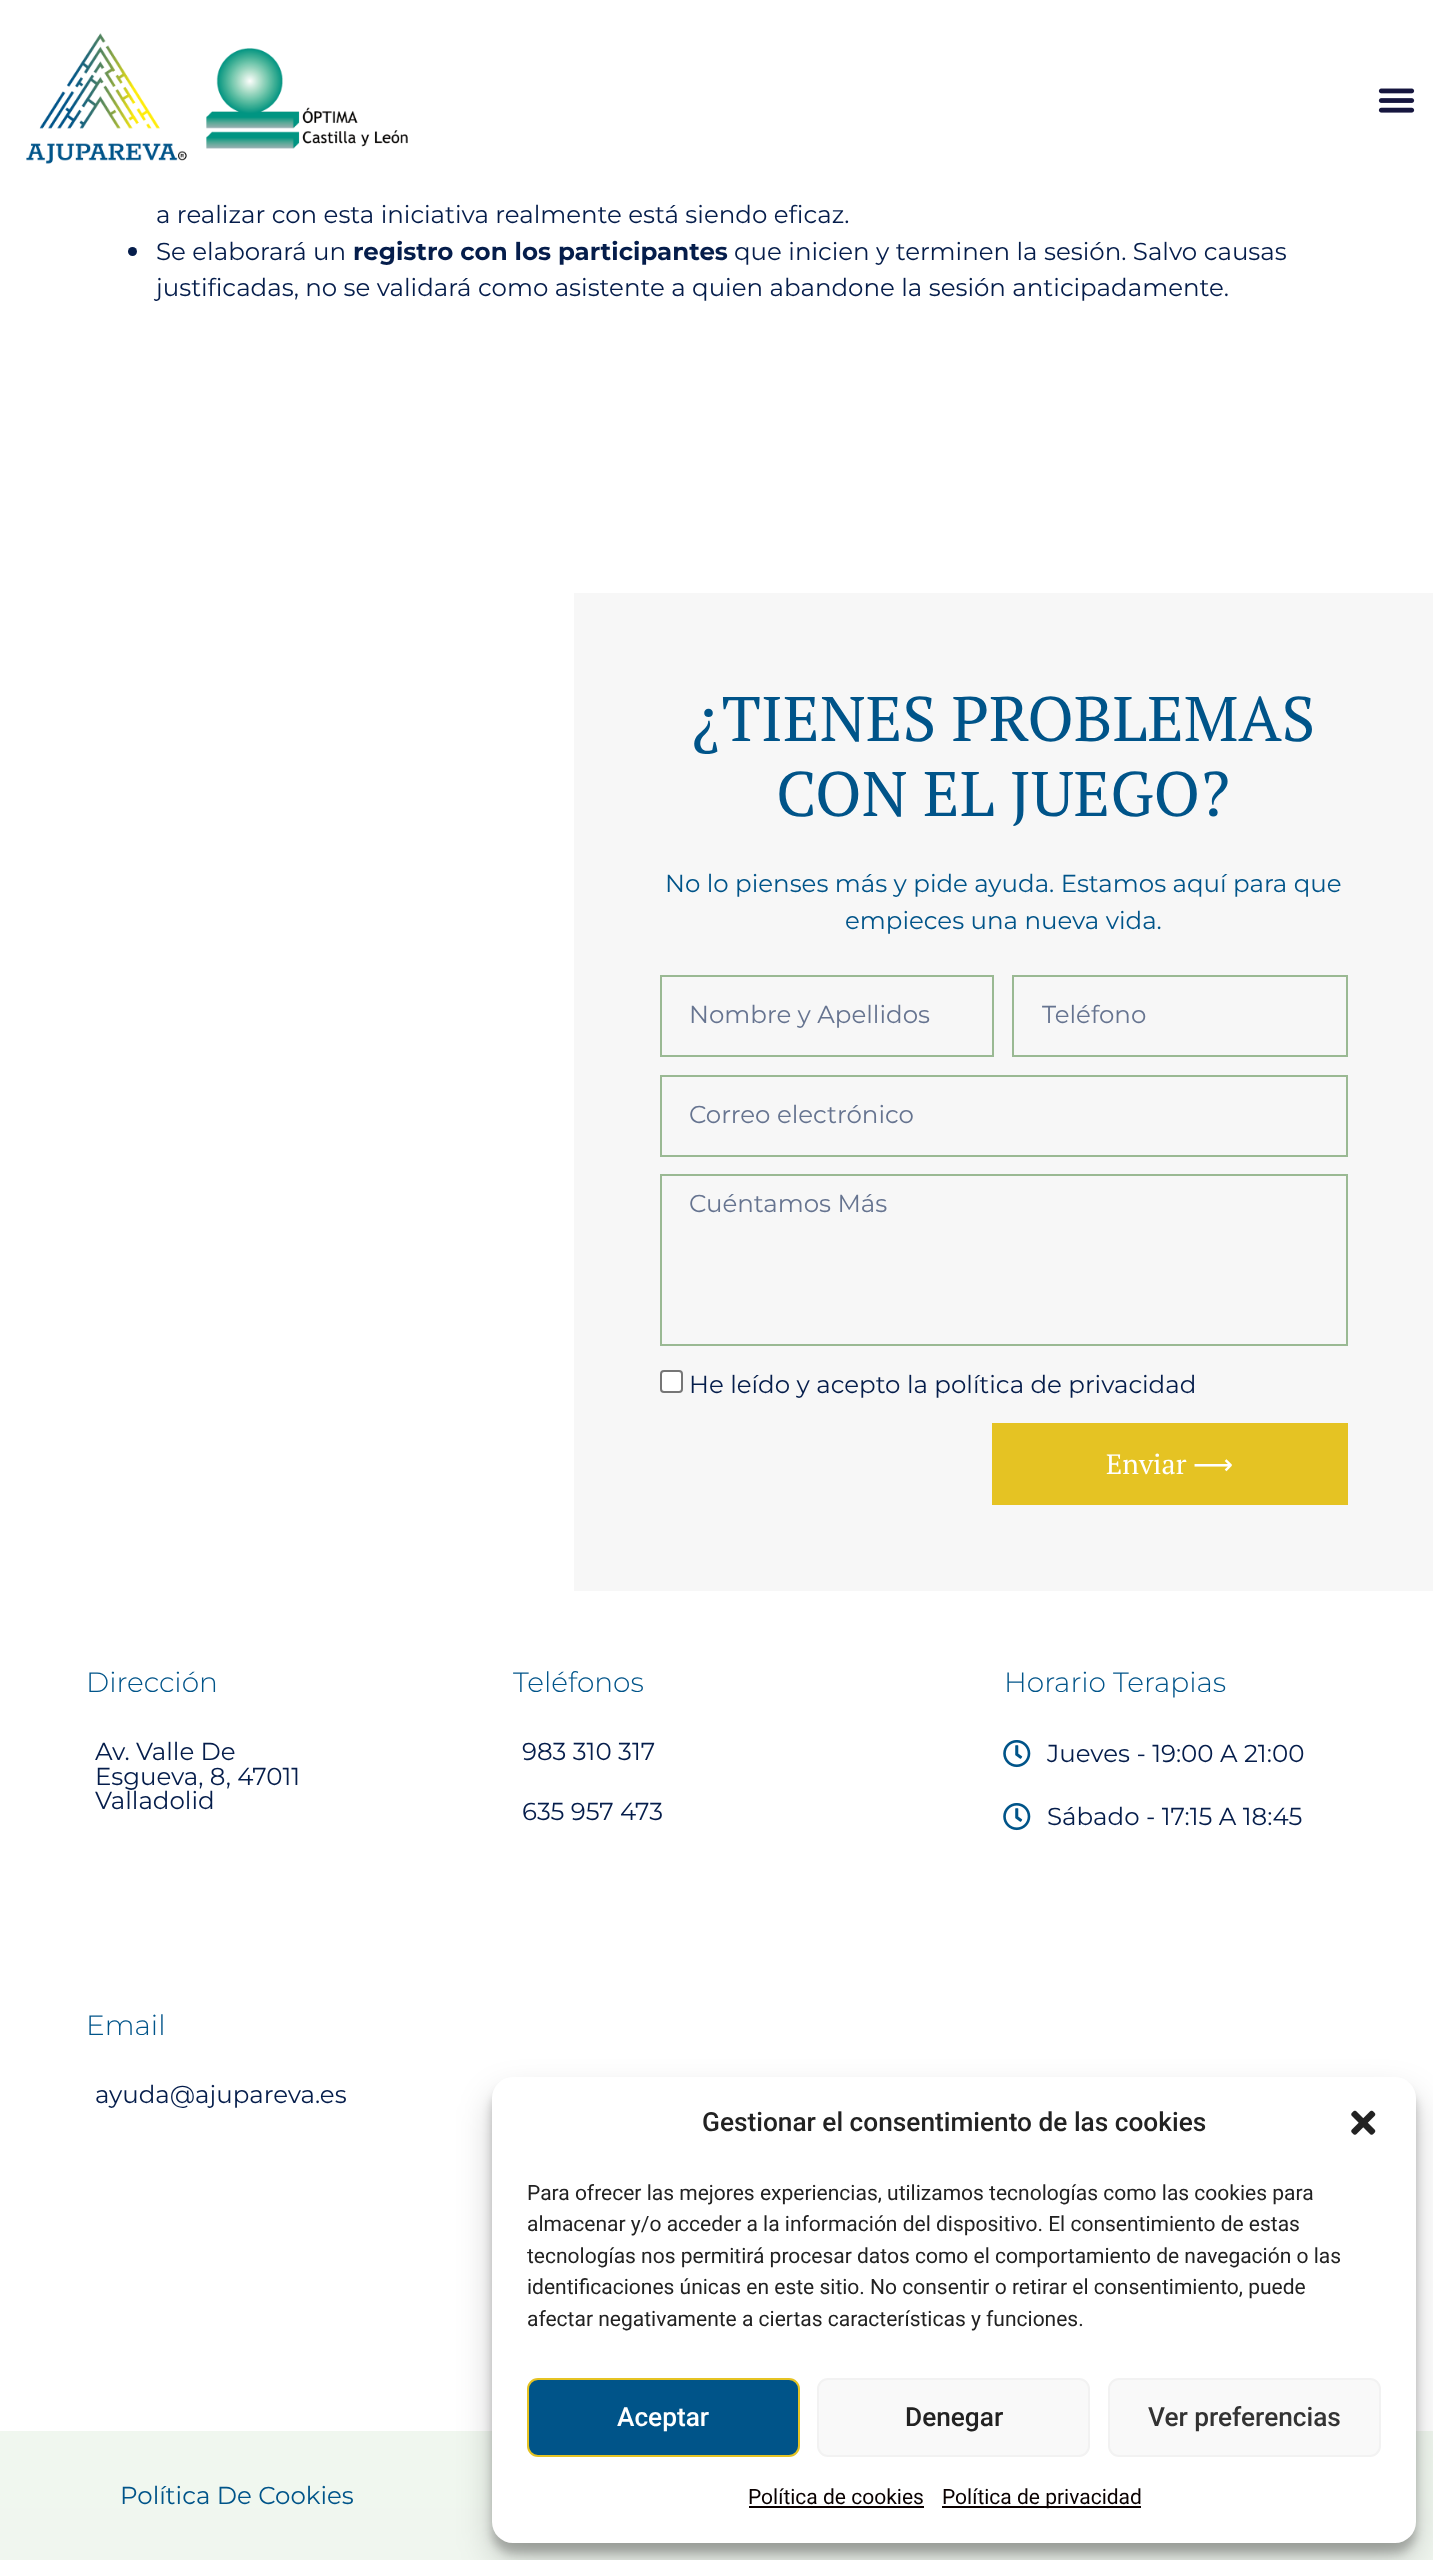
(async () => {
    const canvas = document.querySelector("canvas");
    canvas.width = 1433;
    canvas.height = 2560;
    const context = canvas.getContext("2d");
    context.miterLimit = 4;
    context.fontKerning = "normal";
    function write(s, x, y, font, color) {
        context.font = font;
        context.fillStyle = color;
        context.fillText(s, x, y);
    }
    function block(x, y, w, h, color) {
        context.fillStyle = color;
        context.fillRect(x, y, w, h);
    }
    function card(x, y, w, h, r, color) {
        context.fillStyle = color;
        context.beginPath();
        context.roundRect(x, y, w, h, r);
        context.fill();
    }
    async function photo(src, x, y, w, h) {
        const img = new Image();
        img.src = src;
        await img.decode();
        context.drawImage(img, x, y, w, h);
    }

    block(0, 0, 1433, 2560, "rgb(255, 255, 255)");
    await photo("media/1.png", 26, 33, 161, 131);
    await photo("media/2.png", 206, 48, 202, 101);
    await photo("media/3.png", 1378, 88, 37, 25);
    write("a realizar con esta iniciativa realmente está siendo eficaz.", 156, 223, "24.5px Montserrat", "rgb(5, 29, 75)");
    context.beginPath();
    context.arc(132.5, 251.5, 4.5, 0, Math.PI * 2);
    context.fill();
    write("Se elaborará un", 156, 260, "24.5px Montserrat", "rgb(5, 29, 75)");
    write("registro con los participantes", 353, 260, "bold 24.5px Montserrat", "rgb(5, 29, 75)");
    write("que inicien y terminen la sesión. Salvo causas", 734, 260, "24.5px Montserrat", "rgb(5, 29, 75)");
    write("justificadas, no se validará como asistente a quien abandone la sesión anticipadamente.", 156, 296, "24.5px Montserrat", "rgb(5, 29, 75)");
    block(574, 593, 859, 998, "rgb(247, 247, 247)");
    write("¿TIENES PROBLEMAS", 692, 741, "63px PT Serif", "rgb(0, 84, 137)");
    write("CON EL JUEGO?", 776, 816, "63px PT Serif", "rgb(0, 84, 137)");
    write("No lo pienses más y pide ayuda. Estamos aquí para que", 665, 892, "24.5px Montserrat", "rgb(0, 84, 137)");
    write("empieces una nueva vida.", 845, 929, "24.5px Montserrat", "rgb(0, 84, 137)");
    context.strokeStyle = "rgb(154, 185, 147)";
    context.lineWidth = 2;
    context.strokeRect(661, 976, 332, 80);
    write("Nombre y Apellidos", 689, 1023, "24.5px Montserrat", "rgb(102, 116, 144)");
    context.strokeRect(1013, 976, 334, 80);
    write("Teléfono", 1042, 1023, "24.5px Montserrat", "rgb(102, 116, 144)");
    context.strokeRect(661, 1076, 686, 80);
    write("Correo electrónico", 689, 1123, "24.5px Montserrat", "rgb(102, 116, 144)");
    context.strokeRect(661, 1175, 686, 170);
    write("Cuéntamos Más", 689, 1212, "24.5px Montserrat", "rgb(102, 116, 144)");
    context.fillStyle = "rgb(255, 255, 255)";
    context.beginPath();
    context.roundRect(661, 1371, 21, 21, 3);
    context.fill();
    context.strokeStyle = "rgb(118, 118, 118)";
    context.stroke();
    write("He leído y acepto la política de privacidad", 689, 1393, "24.5px Montserrat", "rgb(5, 29, 75)");
    block(992, 1423, 356, 82, "rgb(229, 195, 35)");
    write("Enviar", 1106, 1474, "28px PT Serif", "rgb(255, 255, 255)");
    write("⟶", 1193, 1474, "28px DejaVu Sans", "rgb(255, 255, 255)");
    write("Dirección", 86, 1692, "300 28px Montserrat", "rgb(0, 84, 137)");
    write("Av. Valle De", 95, 1760, "24.5px Montserrat", "rgb(5, 29, 75)");
    write("Esgueva, 8, 47011", 95, 1785, "24.5px Montserrat", "rgb(5, 29, 75)");
    write("Valladolid", 95, 1809, "24.5px Montserrat", "rgb(5, 29, 75)");
    write("Teléfonos", 513, 1692, "300 28px Montserrat", "rgb(0, 84, 137)");
    write("983 310 317", 522, 1760, "24.5px Montserrat", "rgb(5, 29, 75)");
    write("635 957 473", 522, 1820, "24.5px Montserrat", "rgb(5, 29, 75)");
    write("Horario Terapias", 1004, 1692, "300 28px Montserrat", "rgb(0, 84, 137)");
    await photo("media/4.png", 1003, 1740, 28, 28);
    write("Jueves - 19:00 A 21:00", 1047, 1762, "24.5px Montserrat", "rgb(5, 29, 75)");
    await photo("media/4.png", 1003, 1803, 28, 28);
    write("Sábado - 17:15 A 18:45", 1047, 1825, "24.5px Montserrat", "rgb(5, 29, 75)");
    write("Email", 86, 2035, "300 28px Montserrat", "rgb(0, 84, 137)");
    write("ayuda@ajupareva.es", 95, 2103, "24.5px Montserrat", "rgb(5, 29, 75)");
    block(0, 2431, 1433, 77, "rgb(240, 247, 239)");
    write("Política De Cookies", 120, 2504, "24.5px Montserrat", "rgb(0, 84, 137)");
    block(0, 2508, 1433, 52, "rgb(240, 246, 239)");
    context.fillStyle = "rgba(0, 0, 0, 0.23)";
    context.filter = "blur(5px)";
    context.beginPath();
    context.roundRect(492, 2088, 924, 465, 21);
    context.fill();
    context.filter = "none";
    context.fillStyle = "rgba(0, 0, 0, 0.19)";
    context.filter = "blur(17.5px)";
    context.beginPath();
    context.roundRect(492, 2095, 924, 465, 21);
    context.fill();
    context.filter = "none";
    card(492, 2077, 924, 466, 21, "rgb(255, 255, 255)");
    write("Gestionar el consentimiento de las cookies", 702, 2131, "500 26.25px Roboto", "rgb(34, 34, 34)");
    await photo("media/5.png", 1351, 2110, 25, 25);
    write("Para ofrecer las mejores experiencias, utilizamos tecnologías como las cookies para", 527, 2200, "21px Roboto", "rgb(34, 34, 34)");
    write("almacenar y/o acceder a la información del dispositivo. El consentimiento de estas", 527, 2231, "21px Roboto", "rgb(34, 34, 34)");
    write("tecnologías nos permitirá procesar datos como el comportamiento de navegación o las", 527, 2263, "21px Roboto", "rgb(34, 34, 34)");
    write("identificaciones únicas en este sitio. No consentir o retirar el consentimiento, puede", 527, 2294, "21px Roboto", "rgb(34, 34, 34)");
    write("afectar negativamente a ciertas características y funciones.", 527, 2326, "21px Roboto", "rgb(34, 34, 34)");
    context.fillStyle = "rgb(0, 84, 137)";
    context.beginPath();
    context.roundRect(528, 2379, 271, 77, 10);
    context.fill();
    context.strokeStyle = "rgb(229, 195, 35)";
    context.stroke();
    write("Aceptar", 617, 2426, "500 26.25px Roboto", "rgb(255, 255, 255)");
    context.fillStyle = "rgb(249, 249, 249)";
    context.beginPath();
    context.roundRect(818, 2379, 271, 77, 10);
    context.fill();
    context.strokeStyle = "rgb(242, 242, 242)";
    context.stroke();
    write("Denegar", 905, 2426, "500 26.25px Roboto", "rgb(34, 34, 34)");
    context.fillStyle = "rgb(249, 249, 249)";
    context.beginPath();
    context.roundRect(1109, 2379, 271, 77, 10);
    context.fill();
    context.stroke();
    write("Ver preferencias", 1148, 2426, "500 26.25px Roboto", "rgb(51, 51, 51)");
    write("Política de cookies", 748, 2504, "21px Roboto", "rgb(10, 0, 0)");
    block(749, 2506, 175, 2, "rgb(10, 0, 0)");
    block(942, 2506, 199, 2, "rgb(10, 0, 0)");
    write("Política de privacidad", 942, 2504, "21px Roboto", "rgb(10, 0, 0)");
})();
